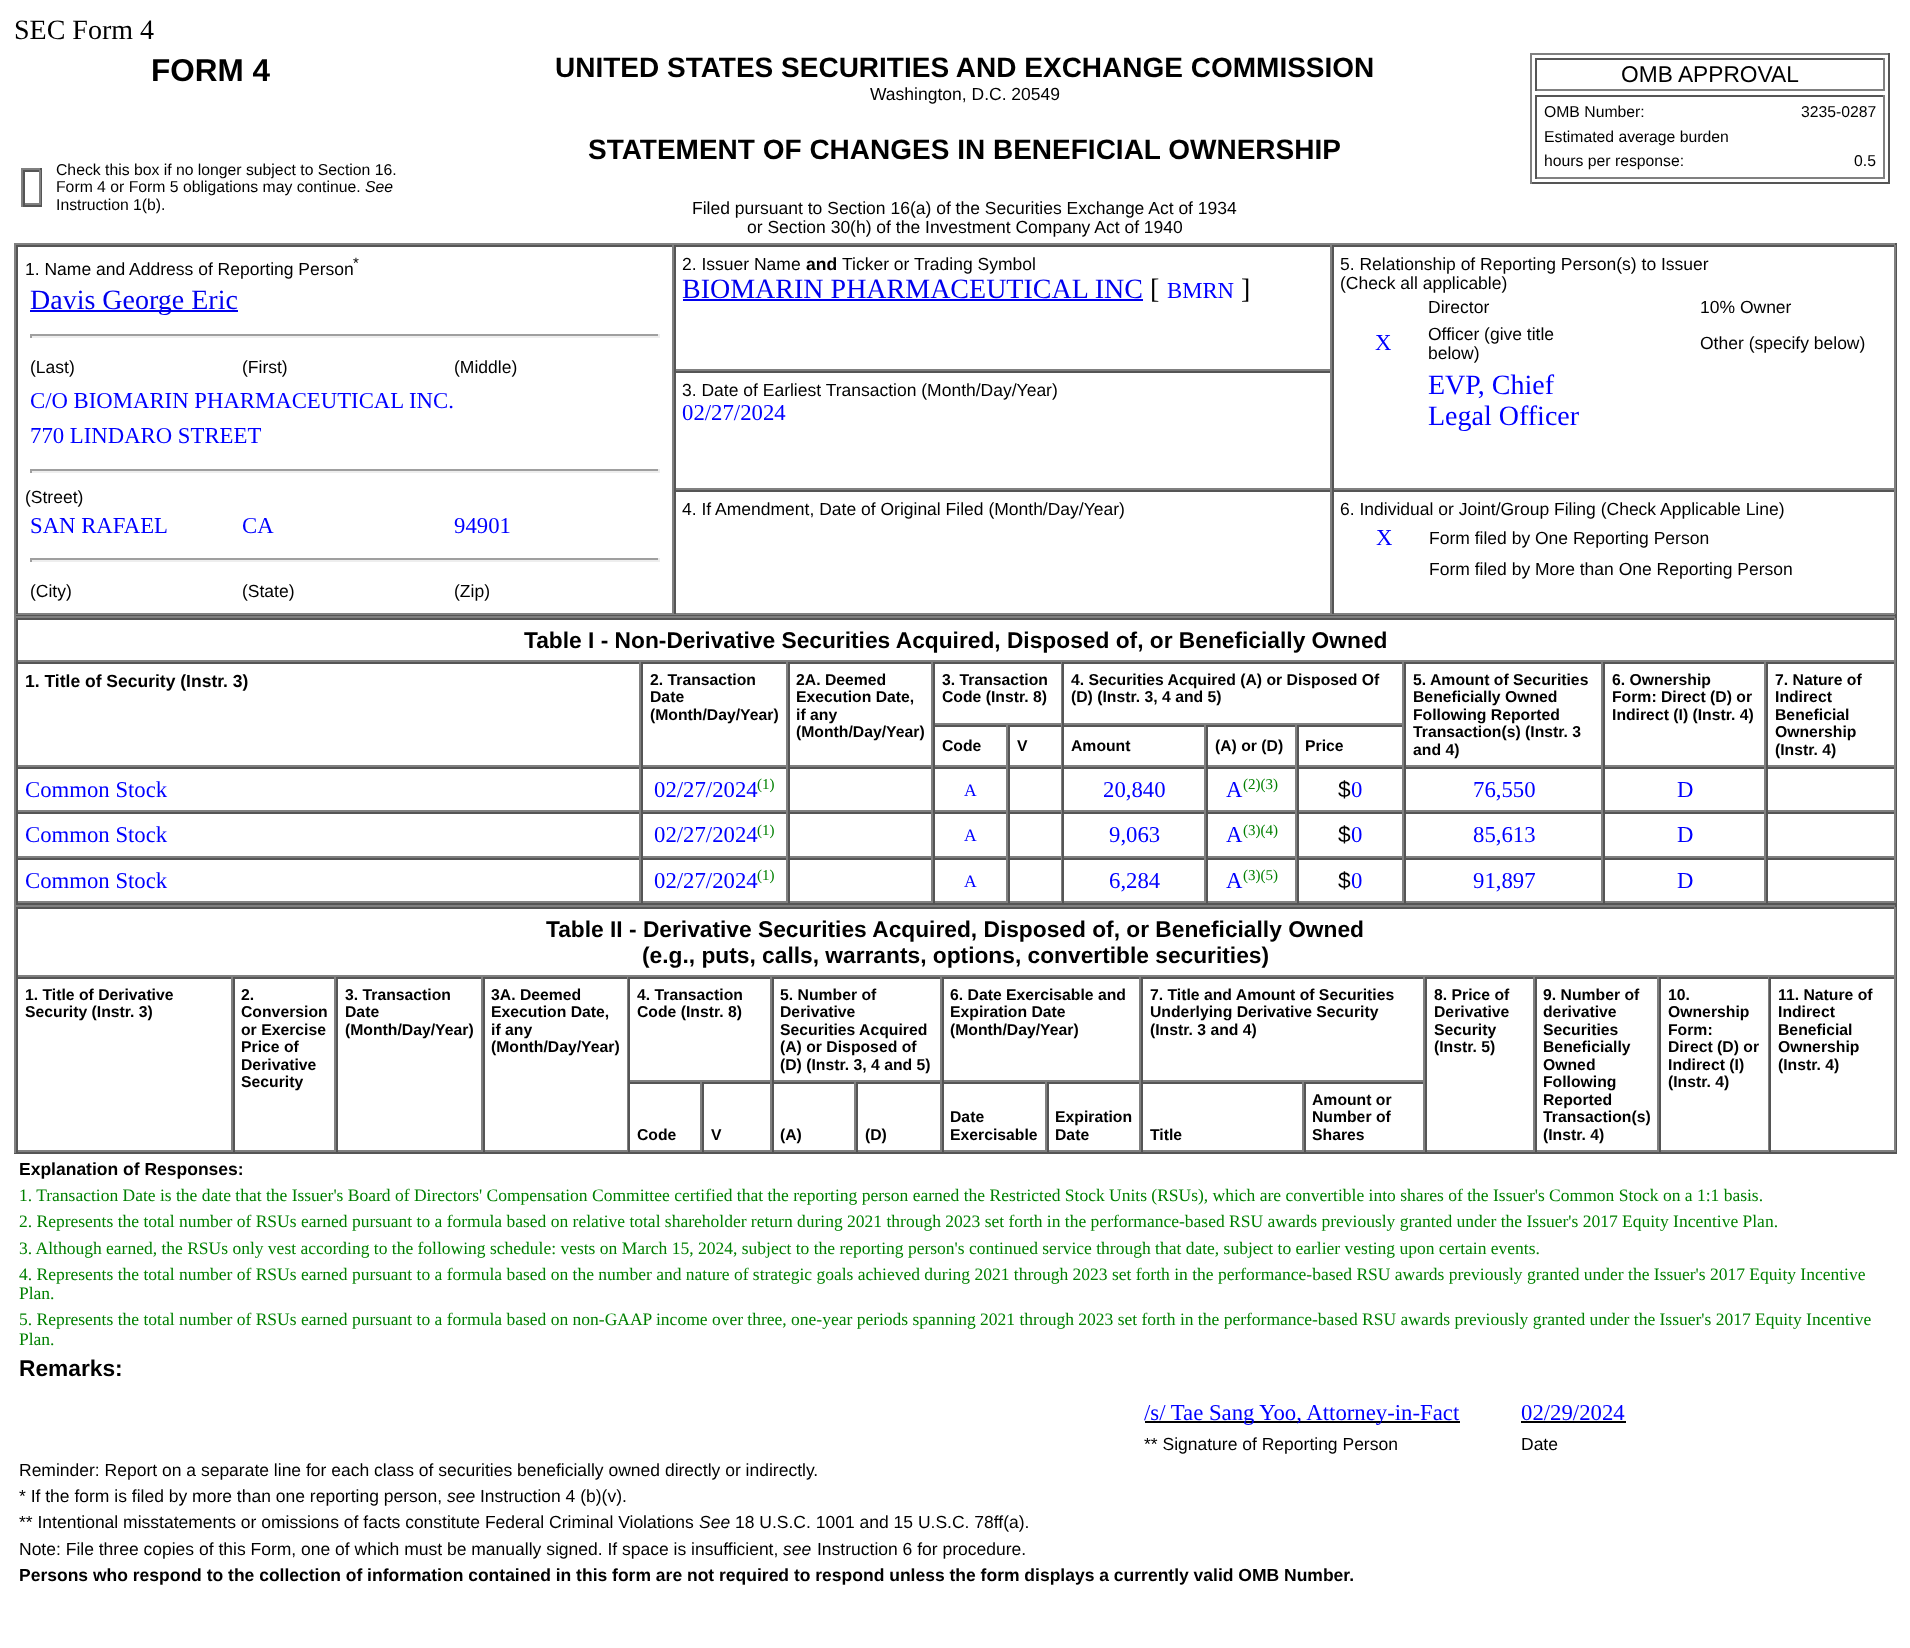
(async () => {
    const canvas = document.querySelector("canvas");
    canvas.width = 1910;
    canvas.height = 1648;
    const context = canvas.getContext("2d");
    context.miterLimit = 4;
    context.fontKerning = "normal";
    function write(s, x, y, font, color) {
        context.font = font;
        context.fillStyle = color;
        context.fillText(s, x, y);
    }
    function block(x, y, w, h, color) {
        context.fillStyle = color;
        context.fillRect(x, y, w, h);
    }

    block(0, 0, 1910, 1648, "rgb(255, 255, 255)");
    write("SEC Form 4", 14, 39, "28px Liberation Serif", "rgb(0, 0, 0)");
    write("FORM 4", 151, 81, "bold 31.5px Liberation Sans", "rgb(0, 0, 0)");
    write("UNITED STATES SECURITIES AND EXCHANGE COMMISSION", 555, 77, "bold 28px Liberation Sans", "rgb(0, 0, 0)");
    write("Washington, D.C. 20549", 870, 100, "17.5px Liberation Sans", "rgb(0, 0, 0)");
    write("STATEMENT OF CHANGES IN BENEFICIAL OWNERSHIP", 588, 159, "bold 28px Liberation Sans", "rgb(0, 0, 0)");
    write("Filed pursuant to Section 16(a) of the Securities Exchange Act of 1934", 692, 214, "17.5px Liberation Sans", "rgb(0, 0, 0)");
    write("or Section 30(h) of the Investment Company Act of 1940", 747, 233, "17.5px Liberation Sans", "rgb(0, 0, 0)");
    block(1530, 53, 360, 2, "rgb(128, 128, 128)");
    block(1888, 53, 2, 131, "rgb(85, 85, 85)");
    block(1530, 182, 360, 2, "rgb(85, 85, 85)");
    block(1530, 53, 2, 131, "rgb(128, 128, 128)");
    block(1535, 58, 350, 2, "rgb(85, 85, 85)");
    block(1883, 58, 2, 33, "rgb(128, 128, 128)");
    block(1535, 89, 350, 2, "rgb(128, 128, 128)");
    block(1535, 58, 2, 33, "rgb(85, 85, 85)");
    write("OMB APPROVAL", 1621, 82, "22.75px Liberation Sans", "rgb(0, 0, 0)");
    block(1535, 95, 350, 2, "rgb(85, 85, 85)");
    block(1883, 95, 2, 84, "rgb(128, 128, 128)");
    block(1535, 177, 350, 2, "rgb(128, 128, 128)");
    block(1535, 95, 2, 84, "rgb(85, 85, 85)");
    write("OMB Number:", 1544, 117, "15.75px Liberation Sans", "rgb(0, 0, 0)");
    write("3235-0287", 1801, 117, "15.75px Liberation Sans", "rgb(0, 0, 0)");
    write("Estimated average burden", 1544, 142, "15.75px Liberation Sans", "rgb(0, 0, 0)");
    write("hours per response:", 1544, 166, "15.75px Liberation Sans", "rgb(0, 0, 0)");
    write("0.5", 1854, 166, "15.75px Liberation Sans", "rgb(0, 0, 0)");
    block(21, 168, 21, 2, "rgb(128, 128, 128)");
    block(40, 168, 2, 39, "rgb(85, 85, 85)");
    block(21, 205, 21, 2, "rgb(85, 85, 85)");
    block(21, 168, 2, 39, "rgb(128, 128, 128)");
    block(23, 170, 17, 2, "rgb(85, 85, 85)");
    block(39, 170, 2, 35, "rgb(128, 128, 128)");
    block(23, 203, 17, 2, "rgb(128, 128, 128)");
    block(23, 170, 2, 35, "rgb(85, 85, 85)");
    write("Check this box if no longer subject to Section 16.", 56, 175, "15.75px Liberation Sans", "rgb(0, 0, 0)");
    write("Form 4 or Form 5 obligations may continue.", 56, 192, "15.75px Liberation Sans", "rgb(0, 0, 0)");
    write("See", 365, 192, "italic 15.75px Liberation Sans", "rgb(0, 0, 0)");
    write("Instruction 1(b).", 56, 210, "15.75px Liberation Sans", "rgb(0, 0, 0)");
    block(14, 243, 1883, 2, "rgb(128, 128, 128)");
    block(1895, 243, 2, 373, "rgb(85, 85, 85)");
    block(14, 614, 1883, 2, "rgb(85, 85, 85)");
    block(14, 243, 2, 373, "rgb(128, 128, 128)");
    block(16, 245, 1879, 2, "rgb(85, 85, 85)");
    block(672, 245, 2, 369, "rgb(128, 128, 128)");
    block(16, 613, 658, 2, "rgb(128, 128, 128)");
    block(16, 245, 2, 369, "rgb(85, 85, 85)");
    write("*", 353, 268, "15px Liberation Sans", "rgb(0, 0, 0)");
    write("1. Name and Address of Reporting Person", 25, 275, "17.5px Liberation Sans", "rgb(0, 0, 0)");
    block(30, 310, 208, 2, "rgb(0, 0, 238)");
    write("Davis George Eric", 30, 309, "28px Liberation Serif", "rgb(0, 0, 238)");
    block(30, 334, 630, 2, "rgb(159, 159, 159)");
    block(658, 334, 2, 4, "rgb(238, 238, 238)");
    block(30, 336, 630, 2, "rgb(238, 238, 238)");
    block(30, 334, 2, 4, "rgb(159, 159, 159)");
    write("(Last)", 30, 373, "17.5px Liberation Sans", "rgb(0, 0, 0)");
    write("(First)", 242, 373, "17.5px Liberation Sans", "rgb(0, 0, 0)");
    write("(Middle)", 454, 373, "17.5px Liberation Sans", "rgb(0, 0, 0)");
    write("C/O BIOMARIN PHARMACEUTICAL INC.", 30, 408, "22.75px Liberation Serif", "rgb(0, 0, 255)");
    write("770 LINDARO STREET", 30, 443, "22.75px Liberation Serif", "rgb(0, 0, 255)");
    block(30, 469, 630, 2, "rgb(159, 159, 159)");
    block(658, 469, 2, 4, "rgb(238, 238, 238)");
    block(30, 471, 630, 2, "rgb(238, 238, 238)");
    block(30, 469, 2, 4, "rgb(159, 159, 159)");
    write("(Street)", 25, 503, "17.5px Liberation Sans", "rgb(0, 0, 0)");
    write("SAN RAFAEL", 30, 533, "22.75px Liberation Serif", "rgb(0, 0, 255)");
    write("CA", 242, 533, "22.75px Liberation Serif", "rgb(0, 0, 255)");
    write("94901", 454, 533, "22.75px Liberation Serif", "rgb(0, 0, 255)");
    block(30, 558, 630, 2, "rgb(159, 159, 159)");
    block(658, 558, 2, 4, "rgb(238, 238, 238)");
    block(30, 560, 630, 2, "rgb(238, 238, 238)");
    block(30, 558, 2, 4, "rgb(159, 159, 159)");
    write("(City)", 30, 597, "17.5px Liberation Sans", "rgb(0, 0, 0)");
    write("(State)", 242, 597, "17.5px Liberation Sans", "rgb(0, 0, 0)");
    write("(Zip)", 454, 597, "17.5px Liberation Sans", "rgb(0, 0, 0)");
    block(1330, 245, 2, 126, "rgb(128, 128, 128)");
    block(674, 369, 658, 2, "rgb(128, 128, 128)");
    block(674, 245, 2, 126, "rgb(85, 85, 85)");
    write("2. Issuer Name", 682, 270, "17.5px Liberation Sans", "rgb(0, 0, 0)");
    write("and", 806, 270, "bold 17.5px Liberation Sans", "rgb(0, 0, 0)");
    write("Ticker or Trading Symbol", 842, 270, "17.5px Liberation Sans", "rgb(0, 0, 0)");
    write("BIOMARIN PHARMACEUTICAL INC", 682, 298, "28px Liberation Serif", "rgb(0, 0, 238)");
    block(683, 299, 460, 2, "rgb(0, 0, 238)");
    write("[", 1150, 298, "28px Liberation Serif", "rgb(0, 0, 0)");
    write("BMRN", 1167, 298, "22.75px Liberation Serif", "rgb(0, 0, 255)");
    write("]", 1241, 298, "28px Liberation Serif", "rgb(0, 0, 0)");
    block(1894, 245, 2, 245, "rgb(128, 128, 128)");
    block(1332, 488, 563, 2, "rgb(128, 128, 128)");
    block(1332, 245, 2, 245, "rgb(85, 85, 85)");
    write("5. Relationship of Reporting Person(s) to Issuer", 1340, 270, "17.5px Liberation Sans", "rgb(0, 0, 0)");
    write("(Check all applicable)", 1340, 289, "17.5px Liberation Sans", "rgb(0, 0, 0)");
    write("Director", 1428, 313, "17.5px Liberation Sans", "rgb(0, 0, 0)");
    write("10% Owner", 1700, 313, "17.5px Liberation Sans", "rgb(0, 0, 0)");
    write("X", 1375, 350, "22.75px Liberation Serif", "rgb(0, 0, 255)");
    write("Officer (give title", 1428, 340, "17.5px Liberation Sans", "rgb(0, 0, 0)");
    write("below)", 1428, 359, "17.5px Liberation Sans", "rgb(0, 0, 0)");
    write("Other (specify below)", 1700, 349, "17.5px Liberation Sans", "rgb(0, 0, 0)");
    write("EVP, Chief", 1428, 394, "28px Liberation Serif", "rgb(0, 0, 255)");
    write("Legal Officer", 1428, 425, "28px Liberation Serif", "rgb(0, 0, 255)");
    block(674, 371, 658, 2, "rgb(85, 85, 85)");
    block(1330, 371, 2, 119, "rgb(128, 128, 128)");
    block(674, 488, 658, 2, "rgb(128, 128, 128)");
    block(674, 371, 2, 119, "rgb(85, 85, 85)");
    write("3. Date of Earliest Transaction (Month/Day/Year)", 682, 396, "17.5px Liberation Sans", "rgb(0, 0, 0)");
    write("02/27/2024", 682, 420, "22.75px Liberation Serif", "rgb(0, 0, 255)");
    block(674, 490, 1221, 2, "rgb(85, 85, 85)");
    block(1330, 490, 2, 124, "rgb(128, 128, 128)");
    block(674, 613, 658, 2, "rgb(128, 128, 128)");
    block(674, 490, 2, 124, "rgb(85, 85, 85)");
    write("4. If Amendment, Date of Original Filed (Month/Day/Year)", 682, 515, "17.5px Liberation Sans", "rgb(0, 0, 0)");
    block(1894, 490, 2, 124, "rgb(128, 128, 128)");
    block(1332, 613, 563, 2, "rgb(128, 128, 128)");
    block(1332, 490, 2, 124, "rgb(85, 85, 85)");
    write("6. Individual or Joint/Group Filing (Check Applicable Line)", 1340, 515, "17.5px Liberation Sans", "rgb(0, 0, 0)");
    write("X", 1376, 545, "22.75px Liberation Serif", "rgb(0, 0, 255)");
    write("Form filed by One Reporting Person", 1429, 544, "17.5px Liberation Sans", "rgb(0, 0, 0)");
    write("Form filed by More than One Reporting Person", 1429, 575, "17.5px Liberation Sans", "rgb(0, 0, 0)");
    block(14, 616, 1883, 2, "rgb(128, 128, 128)");
    block(1895, 616, 2, 289, "rgb(85, 85, 85)");
    block(14, 903, 1883, 2, "rgb(85, 85, 85)");
    block(14, 616, 2, 289, "rgb(128, 128, 128)");
    block(16, 618, 1879, 2, "rgb(85, 85, 85)");
    block(1894, 618, 2, 44, "rgb(128, 128, 128)");
    block(16, 660, 1879, 2, "rgb(128, 128, 128)");
    block(16, 618, 2, 44, "rgb(85, 85, 85)");
    write("Table I - Non-Derivative Securities Acquired, Disposed of, or Beneficially Owned", 524, 648, "bold 22.75px Liberation Sans", "rgb(0, 0, 0)");
    block(16, 662, 1879, 2, "rgb(85, 85, 85)");
    block(639, 662, 2, 105, "rgb(128, 128, 128)");
    block(16, 765, 625, 2, "rgb(128, 128, 128)");
    block(16, 662, 2, 105, "rgb(85, 85, 85)");
    write("1. Title of Security (Instr. 3)", 25, 687, "bold 17.5px Liberation Sans", "rgb(0, 0, 0)");
    block(786, 662, 2, 105, "rgb(128, 128, 128)");
    block(641, 765, 147, 2, "rgb(128, 128, 128)");
    block(641, 662, 2, 105, "rgb(85, 85, 85)");
    write("2. Transaction", 650, 685, "bold 15.75px Liberation Sans", "rgb(0, 0, 0)");
    write("Date", 650, 702, "bold 15.75px Liberation Sans", "rgb(0, 0, 0)");
    write("(Month/Day/Year)", 650, 720, "bold 15.75px Liberation Sans", "rgb(0, 0, 0)");
    block(931, 662, 2, 105, "rgb(128, 128, 128)");
    block(788, 765, 145, 2, "rgb(128, 128, 128)");
    block(788, 662, 2, 105, "rgb(85, 85, 85)");
    write("2A. Deemed", 796, 685, "bold 15.75px Liberation Sans", "rgb(0, 0, 0)");
    write("Execution Date,", 796, 702, "bold 15.75px Liberation Sans", "rgb(0, 0, 0)");
    write("if any", 796, 720, "bold 15.75px Liberation Sans", "rgb(0, 0, 0)");
    write("(Month/Day/Year)", 796, 737, "bold 15.75px Liberation Sans", "rgb(0, 0, 0)");
    block(1061, 662, 1, 63, "rgb(128, 128, 128)");
    block(933, 723, 129, 2, "rgb(128, 128, 128)");
    block(933, 662, 2, 63, "rgb(85, 85, 85)");
    write("3. Transaction", 942, 685, "bold 15.75px Liberation Sans", "rgb(0, 0, 0)");
    write("Code (Instr. 8)", 942, 702, "bold 15.75px Liberation Sans", "rgb(0, 0, 0)");
    block(1402, 662, 2, 63, "rgb(128, 128, 128)");
    block(1062, 723, 342, 2, "rgb(128, 128, 128)");
    block(1062, 662, 2, 63, "rgb(85, 85, 85)");
    write("4. Securities Acquired (A) or Disposed Of", 1071, 685, "bold 15.75px Liberation Sans", "rgb(0, 0, 0)");
    write("(D) (Instr. 3, 4 and 5)", 1071, 702, "bold 15.75px Liberation Sans", "rgb(0, 0, 0)");
    block(1601, 662, 2, 105, "rgb(128, 128, 128)");
    block(1404, 765, 199, 2, "rgb(128, 128, 128)");
    block(1404, 662, 2, 105, "rgb(85, 85, 85)");
    write("5.", 1413, 685, "bold 15.75px Liberation Sans", "rgb(0, 0, 0)");
    write("Amount of Securities", 1430, 685, "bold 15.75px Liberation Sans", "rgb(0, 0, 0)");
    write("Beneficially Owned", 1413, 702, "bold 15.75px Liberation Sans", "rgb(0, 0, 0)");
    write("Following Reported", 1413, 720, "bold 15.75px Liberation Sans", "rgb(0, 0, 0)");
    write("Transaction(s) (Instr. 3", 1413, 737, "bold 15.75px Liberation Sans", "rgb(0, 0, 0)");
    write("and 4)", 1413, 755, "bold 15.75px Liberation Sans", "rgb(0, 0, 0)");
    block(1764, 662, 2, 105, "rgb(128, 128, 128)");
    block(1603, 765, 163, 2, "rgb(128, 128, 128)");
    block(1603, 662, 2, 105, "rgb(85, 85, 85)");
    write("6. Ownership", 1612, 685, "bold 15.75px Liberation Sans", "rgb(0, 0, 0)");
    write("Form: Direct (D) or", 1612, 702, "bold 15.75px Liberation Sans", "rgb(0, 0, 0)");
    write("Indirect (I) (Instr. 4)", 1612, 720, "bold 15.75px Liberation Sans", "rgb(0, 0, 0)");
    block(1894, 662, 2, 105, "rgb(128, 128, 128)");
    block(1766, 765, 129, 2, "rgb(128, 128, 128)");
    block(1766, 662, 2, 105, "rgb(85, 85, 85)");
    write("7. Nature of", 1775, 685, "bold 15.75px Liberation Sans", "rgb(0, 0, 0)");
    write("Indirect", 1775, 702, "bold 15.75px Liberation Sans", "rgb(0, 0, 0)");
    write("Beneficial", 1775, 720, "bold 15.75px Liberation Sans", "rgb(0, 0, 0)");
    write("Ownership", 1775, 737, "bold 15.75px Liberation Sans", "rgb(0, 0, 0)");
    write("(Instr. 4)", 1775, 755, "bold 15.75px Liberation Sans", "rgb(0, 0, 0)");
    block(933, 725, 471, 2, "rgb(85, 85, 85)");
    block(1006, 725, 2, 42, "rgb(128, 128, 128)");
    block(933, 765, 75, 2, "rgb(128, 128, 128)");
    block(933, 725, 2, 42, "rgb(85, 85, 85)");
    write("Code", 942, 751, "bold 15.75px Liberation Sans", "rgb(0, 0, 0)");
    block(1061, 725, 1, 42, "rgb(128, 128, 128)");
    block(1008, 765, 54, 2, "rgb(128, 128, 128)");
    block(1008, 725, 2, 42, "rgb(85, 85, 85)");
    write("V", 1017, 751, "bold 15.75px Liberation Sans", "rgb(0, 0, 0)");
    block(1204, 725, 2, 42, "rgb(128, 128, 128)");
    block(1062, 765, 144, 2, "rgb(128, 128, 128)");
    block(1062, 725, 2, 42, "rgb(85, 85, 85)");
    write("Amount", 1071, 751, "bold 15.75px Liberation Sans", "rgb(0, 0, 0)");
    block(1295, 725, 2, 42, "rgb(128, 128, 128)");
    block(1206, 765, 91, 2, "rgb(128, 128, 128)");
    block(1206, 725, 2, 42, "rgb(85, 85, 85)");
    write("(A) or (D)", 1215, 751, "bold 15.75px Liberation Sans", "rgb(0, 0, 0)");
    block(1402, 725, 2, 42, "rgb(128, 128, 128)");
    block(1297, 765, 107, 2, "rgb(128, 128, 128)");
    block(1297, 725, 2, 42, "rgb(85, 85, 85)");
    write("Price", 1305, 751, "bold 15.75px Liberation Sans", "rgb(0, 0, 0)");
    block(16, 767, 1879, 2, "rgb(85, 85, 85)");
    block(639, 767, 2, 45, "rgb(128, 128, 128)");
    block(16, 810, 625, 2, "rgb(128, 128, 128)");
    block(16, 767, 2, 45, "rgb(85, 85, 85)");
    write("Common Stock", 25, 797, "22.75px Liberation Serif", "rgb(0, 0, 255)");
    block(786, 767, 2, 45, "rgb(128, 128, 128)");
    block(641, 810, 147, 2, "rgb(128, 128, 128)");
    block(641, 767, 2, 45, "rgb(85, 85, 85)");
    write("02/27/2024", 654, 797, "22.75px Liberation Serif", "rgb(0, 0, 255)");
    write("(1)", 757, 789, "15px Liberation Serif", "rgb(0, 128, 0)");
    block(931, 767, 2, 45, "rgb(128, 128, 128)");
    block(788, 810, 145, 2, "rgb(128, 128, 128)");
    block(788, 767, 2, 45, "rgb(85, 85, 85)");
    block(1006, 767, 2, 45, "rgb(128, 128, 128)");
    block(933, 810, 75, 2, "rgb(128, 128, 128)");
    block(933, 767, 2, 45, "rgb(85, 85, 85)");
    write("A", 964, 796, "17.5px Liberation Serif", "rgb(0, 0, 255)");
    block(1061, 767, 1, 45, "rgb(128, 128, 128)");
    block(1008, 810, 54, 2, "rgb(128, 128, 128)");
    block(1008, 767, 2, 45, "rgb(85, 85, 85)");
    block(1204, 767, 2, 45, "rgb(128, 128, 128)");
    block(1062, 810, 144, 2, "rgb(128, 128, 128)");
    block(1062, 767, 2, 45, "rgb(85, 85, 85)");
    write("20,840", 1103, 797, "22.75px Liberation Serif", "rgb(0, 0, 255)");
    block(1295, 767, 2, 45, "rgb(128, 128, 128)");
    block(1206, 810, 91, 2, "rgb(128, 128, 128)");
    block(1206, 767, 2, 45, "rgb(85, 85, 85)");
    write("A", 1226, 797, "22.75px Liberation Serif", "rgb(0, 0, 255)");
    write("(2)(3)", 1243, 789, "15px Liberation Serif", "rgb(0, 128, 0)");
    block(1402, 767, 2, 45, "rgb(128, 128, 128)");
    block(1297, 810, 107, 2, "rgb(128, 128, 128)");
    block(1297, 767, 2, 45, "rgb(85, 85, 85)");
    write("$", 1338, 797, "22.75px Liberation Sans", "rgb(0, 0, 0)");
    write("0", 1351, 797, "22.75px Liberation Serif", "rgb(0, 0, 255)");
    block(1601, 767, 2, 45, "rgb(128, 128, 128)");
    block(1404, 810, 199, 2, "rgb(128, 128, 128)");
    block(1404, 767, 2, 45, "rgb(85, 85, 85)");
    write("76,550", 1473, 797, "22.75px Liberation Serif", "rgb(0, 0, 255)");
    block(1764, 767, 2, 45, "rgb(128, 128, 128)");
    block(1603, 810, 163, 2, "rgb(128, 128, 128)");
    block(1603, 767, 2, 45, "rgb(85, 85, 85)");
    write("D", 1677, 797, "22.75px Liberation Serif", "rgb(0, 0, 255)");
    block(1894, 767, 2, 45, "rgb(128, 128, 128)");
    block(1766, 810, 129, 2, "rgb(128, 128, 128)");
    block(1766, 767, 2, 45, "rgb(85, 85, 85)");
    block(16, 812, 1879, 2, "rgb(85, 85, 85)");
    block(639, 812, 2, 46, "rgb(128, 128, 128)");
    block(16, 856, 625, 2, "rgb(128, 128, 128)");
    block(16, 812, 2, 46, "rgb(85, 85, 85)");
    write("Common Stock", 25, 842, "22.75px Liberation Serif", "rgb(0, 0, 255)");
    block(786, 812, 2, 46, "rgb(128, 128, 128)");
    block(641, 856, 147, 2, "rgb(128, 128, 128)");
    block(641, 812, 2, 46, "rgb(85, 85, 85)");
    write("02/27/2024", 654, 842, "22.75px Liberation Serif", "rgb(0, 0, 255)");
    write("(1)", 757, 835, "15px Liberation Serif", "rgb(0, 128, 0)");
    block(931, 812, 2, 46, "rgb(128, 128, 128)");
    block(788, 856, 145, 2, "rgb(128, 128, 128)");
    block(788, 812, 2, 46, "rgb(85, 85, 85)");
    block(1006, 812, 2, 46, "rgb(128, 128, 128)");
    block(933, 856, 75, 2, "rgb(128, 128, 128)");
    block(933, 812, 2, 46, "rgb(85, 85, 85)");
    write("A", 964, 841, "17.5px Liberation Serif", "rgb(0, 0, 255)");
    block(1061, 812, 1, 46, "rgb(128, 128, 128)");
    block(1008, 856, 54, 2, "rgb(128, 128, 128)");
    block(1008, 812, 2, 46, "rgb(85, 85, 85)");
    block(1204, 812, 2, 46, "rgb(128, 128, 128)");
    block(1062, 856, 144, 2, "rgb(128, 128, 128)");
    block(1062, 812, 2, 46, "rgb(85, 85, 85)");
    write("9,063", 1109, 842, "22.75px Liberation Serif", "rgb(0, 0, 255)");
    block(1295, 812, 2, 46, "rgb(128, 128, 128)");
    block(1206, 856, 91, 2, "rgb(128, 128, 128)");
    block(1206, 812, 2, 46, "rgb(85, 85, 85)");
    write("A", 1226, 842, "22.75px Liberation Serif", "rgb(0, 0, 255)");
    write("(3)(4)", 1243, 835, "15px Liberation Serif", "rgb(0, 128, 0)");
    block(1402, 812, 2, 46, "rgb(128, 128, 128)");
    block(1297, 856, 107, 2, "rgb(128, 128, 128)");
    block(1297, 812, 2, 46, "rgb(85, 85, 85)");
    write("$", 1338, 842, "22.75px Liberation Sans", "rgb(0, 0, 0)");
    write("0", 1351, 842, "22.75px Liberation Serif", "rgb(0, 0, 255)");
    block(1601, 812, 2, 46, "rgb(128, 128, 128)");
    block(1404, 856, 199, 2, "rgb(128, 128, 128)");
    block(1404, 812, 2, 46, "rgb(85, 85, 85)");
    write("85,613", 1473, 842, "22.75px Liberation Serif", "rgb(0, 0, 255)");
    block(1764, 812, 2, 46, "rgb(128, 128, 128)");
    block(1603, 856, 163, 2, "rgb(128, 128, 128)");
    block(1603, 812, 2, 46, "rgb(85, 85, 85)");
    write("D", 1677, 842, "22.75px Liberation Serif", "rgb(0, 0, 255)");
    block(1894, 812, 2, 46, "rgb(128, 128, 128)");
    block(1766, 856, 129, 2, "rgb(128, 128, 128)");
    block(1766, 812, 2, 46, "rgb(85, 85, 85)");
    block(16, 858, 1879, 2, "rgb(85, 85, 85)");
    block(639, 858, 2, 45, "rgb(128, 128, 128)");
    block(16, 901, 625, 2, "rgb(128, 128, 128)");
    block(16, 858, 2, 45, "rgb(85, 85, 85)");
    write("Common Stock", 25, 888, "22.75px Liberation Serif", "rgb(0, 0, 255)");
    block(786, 858, 2, 45, "rgb(128, 128, 128)");
    block(641, 901, 147, 2, "rgb(128, 128, 128)");
    block(641, 858, 2, 45, "rgb(85, 85, 85)");
    write("02/27/2024", 654, 888, "22.75px Liberation Serif", "rgb(0, 0, 255)");
    write("(1)", 757, 880, "15px Liberation Serif", "rgb(0, 128, 0)");
    block(931, 858, 2, 45, "rgb(128, 128, 128)");
    block(788, 901, 145, 2, "rgb(128, 128, 128)");
    block(788, 858, 2, 45, "rgb(85, 85, 85)");
    block(1006, 858, 2, 45, "rgb(128, 128, 128)");
    block(933, 901, 75, 2, "rgb(128, 128, 128)");
    block(933, 858, 2, 45, "rgb(85, 85, 85)");
    write("A", 964, 887, "17.5px Liberation Serif", "rgb(0, 0, 255)");
    block(1061, 858, 1, 45, "rgb(128, 128, 128)");
    block(1008, 901, 54, 2, "rgb(128, 128, 128)");
    block(1008, 858, 2, 45, "rgb(85, 85, 85)");
    block(1204, 858, 2, 45, "rgb(128, 128, 128)");
    block(1062, 901, 144, 2, "rgb(128, 128, 128)");
    block(1062, 858, 2, 45, "rgb(85, 85, 85)");
    write("6,284", 1109, 888, "22.75px Liberation Serif", "rgb(0, 0, 255)");
    block(1295, 858, 2, 45, "rgb(128, 128, 128)");
    block(1206, 901, 91, 2, "rgb(128, 128, 128)");
    block(1206, 858, 2, 45, "rgb(85, 85, 85)");
    write("A", 1226, 888, "22.75px Liberation Serif", "rgb(0, 0, 255)");
    write("(3)(5)", 1243, 880, "15px Liberation Serif", "rgb(0, 128, 0)");
    block(1402, 858, 2, 45, "rgb(128, 128, 128)");
    block(1297, 901, 107, 2, "rgb(128, 128, 128)");
    block(1297, 858, 2, 45, "rgb(85, 85, 85)");
    write("$", 1338, 888, "22.75px Liberation Sans", "rgb(0, 0, 0)");
    write("0", 1351, 888, "22.75px Liberation Serif", "rgb(0, 0, 255)");
    block(1601, 858, 2, 45, "rgb(128, 128, 128)");
    block(1404, 901, 199, 2, "rgb(128, 128, 128)");
    block(1404, 858, 2, 45, "rgb(85, 85, 85)");
    write("91,897", 1473, 888, "22.75px Liberation Serif", "rgb(0, 0, 255)");
    block(1764, 858, 2, 45, "rgb(128, 128, 128)");
    block(1603, 901, 163, 2, "rgb(128, 128, 128)");
    block(1603, 858, 2, 45, "rgb(85, 85, 85)");
    write("D", 1677, 888, "22.75px Liberation Serif", "rgb(0, 0, 255)");
    block(1894, 858, 2, 45, "rgb(128, 128, 128)");
    block(1766, 901, 129, 2, "rgb(128, 128, 128)");
    block(1766, 858, 2, 45, "rgb(85, 85, 85)");
    block(14, 905, 1883, 2, "rgb(128, 128, 128)");
    block(1895, 905, 2, 248, "rgb(85, 85, 85)");
    block(14, 1152, 1883, 2, "rgb(85, 85, 85)");
    block(14, 905, 2, 248, "rgb(128, 128, 128)");
    block(16, 907, 1879, 2, "rgb(85, 85, 85)");
    block(1894, 907, 2, 70, "rgb(128, 128, 128)");
    block(16, 975, 1879, 2, "rgb(128, 128, 128)");
    block(16, 907, 2, 70, "rgb(85, 85, 85)");
    write("Table II - Derivative Securities Acquired, Disposed of, or Beneficially Owned", 546, 937, "bold 22.75px Liberation Sans", "rgb(0, 0, 0)");
    write("(e.g., puts, calls, warrants, options, convertible securities)", 642, 963, "bold 22.75px Liberation Sans", "rgb(0, 0, 0)");
    block(16, 977, 1879, 2, "rgb(85, 85, 85)");
    block(231, 977, 2, 175, "rgb(128, 128, 128)");
    block(16, 1150, 217, 2, "rgb(128, 128, 128)");
    block(16, 977, 2, 175, "rgb(85, 85, 85)");
    write("1. Title of Derivative", 25, 1000, "bold 15.75px Liberation Sans", "rgb(0, 0, 0)");
    write("Security (Instr. 3)", 25, 1017, "bold 15.75px Liberation Sans", "rgb(0, 0, 0)");
    block(334, 977, 2, 175, "rgb(128, 128, 128)");
    block(233, 1150, 103, 2, "rgb(128, 128, 128)");
    block(233, 977, 2, 175, "rgb(85, 85, 85)");
    write("2.", 241, 1000, "bold 15.75px Liberation Sans", "rgb(0, 0, 0)");
    write("Conversion", 241, 1017, "bold 15.75px Liberation Sans", "rgb(0, 0, 0)");
    write("or Exercise", 241, 1035, "bold 15.75px Liberation Sans", "rgb(0, 0, 0)");
    write("Price of", 241, 1052, "bold 15.75px Liberation Sans", "rgb(0, 0, 0)");
    write("Derivative", 241, 1070, "bold 15.75px Liberation Sans", "rgb(0, 0, 0)");
    write("Security", 241, 1087, "bold 15.75px Liberation Sans", "rgb(0, 0, 0)");
    block(481, 977, 2, 175, "rgb(128, 128, 128)");
    block(336, 1150, 147, 2, "rgb(128, 128, 128)");
    block(336, 977, 2, 175, "rgb(85, 85, 85)");
    write("3. Transaction", 345, 1000, "bold 15.75px Liberation Sans", "rgb(0, 0, 0)");
    write("Date", 345, 1017, "bold 15.75px Liberation Sans", "rgb(0, 0, 0)");
    write("(Month/Day/Year)", 345, 1035, "bold 15.75px Liberation Sans", "rgb(0, 0, 0)");
    block(627, 977, 1, 175, "rgb(128, 128, 128)");
    block(483, 1150, 145, 2, "rgb(128, 128, 128)");
    block(483, 977, 2, 175, "rgb(85, 85, 85)");
    write("3A. Deemed", 491, 1000, "bold 15.75px Liberation Sans", "rgb(0, 0, 0)");
    write("Execution Date,", 491, 1017, "bold 15.75px Liberation Sans", "rgb(0, 0, 0)");
    write("if any", 491, 1035, "bold 15.75px Liberation Sans", "rgb(0, 0, 0)");
    write("(Month/Day/Year)", 491, 1052, "bold 15.75px Liberation Sans", "rgb(0, 0, 0)");
    block(770, 977, 2, 105, "rgb(128, 128, 128)");
    block(628, 1080, 144, 2, "rgb(128, 128, 128)");
    block(628, 977, 2, 105, "rgb(85, 85, 85)");
    write("4. Transaction", 637, 1000, "bold 15.75px Liberation Sans", "rgb(0, 0, 0)");
    write("Code (Instr. 8)", 637, 1017, "bold 15.75px Liberation Sans", "rgb(0, 0, 0)");
    block(940, 977, 2, 105, "rgb(128, 128, 128)");
    block(772, 1080, 170, 2, "rgb(128, 128, 128)");
    block(772, 977, 2, 105, "rgb(85, 85, 85)");
    write("5. Number of", 780, 1000, "bold 15.75px Liberation Sans", "rgb(0, 0, 0)");
    write("Derivative", 780, 1017, "bold 15.75px Liberation Sans", "rgb(0, 0, 0)");
    write("Securities Acquired", 780, 1035, "bold 15.75px Liberation Sans", "rgb(0, 0, 0)");
    write("(A) or Disposed of", 780, 1052, "bold 15.75px Liberation Sans", "rgb(0, 0, 0)");
    write("(D) (Instr. 3, 4 and 5)", 780, 1070, "bold 15.75px Liberation Sans", "rgb(0, 0, 0)");
    block(1139, 977, 2, 105, "rgb(128, 128, 128)");
    block(942, 1080, 199, 2, "rgb(128, 128, 128)");
    block(942, 977, 2, 105, "rgb(85, 85, 85)");
    write("6. Date Exercisable and", 950, 1000, "bold 15.75px Liberation Sans", "rgb(0, 0, 0)");
    write("Expiration Date", 950, 1017, "bold 15.75px Liberation Sans", "rgb(0, 0, 0)");
    write("(Month/Day/Year)", 950, 1035, "bold 15.75px Liberation Sans", "rgb(0, 0, 0)");
    block(1423, 977, 2, 105, "rgb(128, 128, 128)");
    block(1141, 1080, 284, 2, "rgb(128, 128, 128)");
    block(1141, 977, 2, 105, "rgb(85, 85, 85)");
    write("7. Title and Amount of Securities", 1150, 1000, "bold 15.75px Liberation Sans", "rgb(0, 0, 0)");
    write("Underlying Derivative Security", 1150, 1017, "bold 15.75px Liberation Sans", "rgb(0, 0, 0)");
    write("(Instr. 3 and 4)", 1150, 1035, "bold 15.75px Liberation Sans", "rgb(0, 0, 0)");
    block(1533, 977, 2, 175, "rgb(128, 128, 128)");
    block(1425, 1150, 110, 2, "rgb(128, 128, 128)");
    block(1425, 977, 2, 175, "rgb(85, 85, 85)");
    write("8. Price of", 1434, 1000, "bold 15.75px Liberation Sans", "rgb(0, 0, 0)");
    write("Derivative", 1434, 1017, "bold 15.75px Liberation Sans", "rgb(0, 0, 0)");
    write("Security", 1434, 1035, "bold 15.75px Liberation Sans", "rgb(0, 0, 0)");
    write("(Instr. 5)", 1434, 1052, "bold 15.75px Liberation Sans", "rgb(0, 0, 0)");
    block(1657, 977, 2, 175, "rgb(128, 128, 128)");
    block(1535, 1150, 124, 2, "rgb(128, 128, 128)");
    block(1535, 977, 2, 175, "rgb(85, 85, 85)");
    write("9. Number of", 1543, 1000, "bold 15.75px Liberation Sans", "rgb(0, 0, 0)");
    write("derivative", 1543, 1017, "bold 15.75px Liberation Sans", "rgb(0, 0, 0)");
    write("Securities", 1543, 1035, "bold 15.75px Liberation Sans", "rgb(0, 0, 0)");
    write("Beneficially", 1543, 1052, "bold 15.75px Liberation Sans", "rgb(0, 0, 0)");
    write("Owned", 1543, 1070, "bold 15.75px Liberation Sans", "rgb(0, 0, 0)");
    write("Following", 1543, 1087, "bold 15.75px Liberation Sans", "rgb(0, 0, 0)");
    write("Reported", 1543, 1105, "bold 15.75px Liberation Sans", "rgb(0, 0, 0)");
    write("Transaction(s)", 1543, 1122, "bold 15.75px Liberation Sans", "rgb(0, 0, 0)");
    write("(Instr. 4)", 1543, 1140, "bold 15.75px Liberation Sans", "rgb(0, 0, 0)");
    block(1768, 977, 1, 175, "rgb(128, 128, 128)");
    block(1659, 1150, 110, 2, "rgb(128, 128, 128)");
    block(1659, 977, 2, 175, "rgb(85, 85, 85)");
    write("10.", 1668, 1000, "bold 15.75px Liberation Sans", "rgb(0, 0, 0)");
    write("Ownership", 1668, 1017, "bold 15.75px Liberation Sans", "rgb(0, 0, 0)");
    write("Form:", 1668, 1035, "bold 15.75px Liberation Sans", "rgb(0, 0, 0)");
    write("Direct (D) or", 1668, 1052, "bold 15.75px Liberation Sans", "rgb(0, 0, 0)");
    write("Indirect (I)", 1668, 1070, "bold 15.75px Liberation Sans", "rgb(0, 0, 0)");
    write("(Instr. 4)", 1668, 1087, "bold 15.75px Liberation Sans", "rgb(0, 0, 0)");
    block(1894, 977, 2, 175, "rgb(128, 128, 128)");
    block(1769, 1150, 126, 2, "rgb(128, 128, 128)");
    block(1769, 977, 2, 175, "rgb(85, 85, 85)");
    write("11. Nature of", 1778, 1000, "bold 15.75px Liberation Sans", "rgb(0, 0, 0)");
    write("Indirect", 1778, 1017, "bold 15.75px Liberation Sans", "rgb(0, 0, 0)");
    write("Beneficial", 1778, 1035, "bold 15.75px Liberation Sans", "rgb(0, 0, 0)");
    write("Ownership", 1778, 1052, "bold 15.75px Liberation Sans", "rgb(0, 0, 0)");
    write("(Instr. 4)", 1778, 1070, "bold 15.75px Liberation Sans", "rgb(0, 0, 0)");
    block(628, 1082, 797, 2, "rgb(85, 85, 85)");
    block(700, 1082, 2, 70, "rgb(128, 128, 128)");
    block(628, 1150, 74, 2, "rgb(128, 128, 128)");
    block(628, 1082, 2, 70, "rgb(85, 85, 85)");
    write("Code", 637, 1140, "bold 15.75px Liberation Sans", "rgb(0, 0, 0)");
    block(770, 1082, 2, 70, "rgb(128, 128, 128)");
    block(702, 1150, 70, 2, "rgb(128, 128, 128)");
    block(702, 1082, 2, 70, "rgb(85, 85, 85)");
    write("V", 711, 1140, "bold 15.75px Liberation Sans", "rgb(0, 0, 0)");
    block(854, 1082, 2, 70, "rgb(128, 128, 128)");
    block(772, 1150, 84, 2, "rgb(128, 128, 128)");
    block(772, 1082, 2, 70, "rgb(85, 85, 85)");
    write("(A)", 780, 1140, "bold 15.75px Liberation Sans", "rgb(0, 0, 0)");
    block(940, 1082, 2, 70, "rgb(128, 128, 128)");
    block(856, 1150, 86, 2, "rgb(128, 128, 128)");
    block(856, 1082, 2, 70, "rgb(85, 85, 85)");
    write("(D)", 865, 1140, "bold 15.75px Liberation Sans", "rgb(0, 0, 0)");
    block(1045, 1082, 2, 70, "rgb(128, 128, 128)");
    block(942, 1150, 105, 2, "rgb(128, 128, 128)");
    block(942, 1082, 2, 70, "rgb(85, 85, 85)");
    write("Date", 950, 1122, "bold 15.75px Liberation Sans", "rgb(0, 0, 0)");
    write("Exercisable", 950, 1140, "bold 15.75px Liberation Sans", "rgb(0, 0, 0)");
    block(1139, 1082, 2, 70, "rgb(128, 128, 128)");
    block(1047, 1150, 94, 2, "rgb(128, 128, 128)");
    block(1047, 1082, 2, 70, "rgb(85, 85, 85)");
    write("Expiration", 1055, 1122, "bold 15.75px Liberation Sans", "rgb(0, 0, 0)");
    write("Date", 1055, 1140, "bold 15.75px Liberation Sans", "rgb(0, 0, 0)");
    block(1302, 1082, 2, 70, "rgb(128, 128, 128)");
    block(1141, 1150, 163, 2, "rgb(128, 128, 128)");
    block(1141, 1082, 2, 70, "rgb(85, 85, 85)");
    write("Title", 1150, 1140, "bold 15.75px Liberation Sans", "rgb(0, 0, 0)");
    block(1423, 1082, 2, 70, "rgb(128, 128, 128)");
    block(1304, 1150, 121, 2, "rgb(128, 128, 128)");
    block(1304, 1082, 2, 70, "rgb(85, 85, 85)");
    write("Amount or", 1312, 1105, "bold 15.75px Liberation Sans", "rgb(0, 0, 0)");
    write("Number of", 1312, 1122, "bold 15.75px Liberation Sans", "rgb(0, 0, 0)");
    write("Shares", 1312, 1140, "bold 15.75px Liberation Sans", "rgb(0, 0, 0)");
    write("Explanation of Responses:", 19, 1175, "bold 17.5px Liberation Sans", "rgb(0, 0, 0)");
    write("1. Transaction Date is the date that the Issuer's Board of Directors' Compensation Committee certified that the reporting person earned the Restricted Stock Units (RSUs), which are convertible into shares of the Issuer's Common Stock on a 1:1 basis.", 19, 1201, "17.5px Liberation Serif", "rgb(0, 128, 0)");
    write("2. Represents the total number of RSUs earned pursuant to a formula based on relative total shareholder return during 2021 through 2023 set forth in the performance-based RSU awards previously granted under the Issuer's 2017 Equity Incentive Plan.", 19, 1227, "17.5px Liberation Serif", "rgb(0, 128, 0)");
    write("3. Although earned, the RSUs only vest according to the following schedule: vests on March 15, 2024, subject to the reporting person's continued service through that date, subject to earlier vesting upon certain events.", 19, 1254, "17.5px Liberation Serif", "rgb(0, 128, 0)");
    write("4. Represents the total number of RSUs earned pursuant to a formula based on the number and nature of strategic goals achieved during 2021 through 2023 set forth in the performance-based RSU awards previously granted under the Issuer's 2017 Equity Incentive", 19, 1280, "17.5px Liberation Serif", "rgb(0, 128, 0)");
    write("Plan.", 19, 1299, "17.5px Liberation Serif", "rgb(0, 128, 0)");
    write("5. Represents the total number of RSUs earned pursuant to a formula based on non-GAAP income over three, one-year periods spanning 2021 through 2023 set forth in the performance-based RSU awards previously granted under the Issuer's 2017 Equity Incentive", 19, 1325, "17.5px Liberation Serif", "rgb(0, 128, 0)");
    write("Plan.", 19, 1345, "17.5px Liberation Serif", "rgb(0, 128, 0)");
    write("Remarks:", 19, 1376, "bold 22.75px Liberation Sans", "rgb(0, 0, 0)");
    block(1145, 1421, 315, 2, "rgb(0, 0, 0)");
    write("/s/ Tae Sang Yoo, Attorney-in-Fact", 1144, 1420, "22.75px Liberation Serif", "rgb(0, 0, 255)");
    write("02/29/2024", 1521, 1420, "22.75px Liberation Serif", "rgb(0, 0, 255)");
    block(1521, 1421, 105, 2, "rgb(0, 0, 0)");
    write("** Signature of Reporting Person", 1144, 1450, "17.5px Liberation Sans", "rgb(0, 0, 0)");
    write("Date", 1521, 1450, "17.5px Liberation Sans", "rgb(0, 0, 0)");
    write("Reminder: Report on a separate line for each class of securities beneficially owned directly or indirectly.", 19, 1476, "17.5px Liberation Sans", "rgb(0, 0, 0)");
    write("* If the form is filed by more than one reporting person,", 19, 1502, "17.5px Liberation Sans", "rgb(0, 0, 0)");
    write("see", 447, 1502, "italic 17.5px Liberation Sans", "rgb(0, 0, 0)");
    write("Instruction 4 (b)(v).", 480, 1502, "17.5px Liberation Sans", "rgb(0, 0, 0)");
    write("** Intentional misstatements or omissions of facts constitute Federal Criminal Violations", 19, 1528, "17.5px Liberation Sans", "rgb(0, 0, 0)");
    write("See", 699, 1528, "italic 17.5px Liberation Sans", "rgb(0, 0, 0)");
    write("18 U.S.C. 1001 and 15 U.S.C. 78ff(a).", 735, 1528, "17.5px Liberation Sans", "rgb(0, 0, 0)");
    write("Note: File three copies of this Form, one of which must be manually signed. If space is insufficient,", 19, 1555, "17.5px Liberation Sans", "rgb(0, 0, 0)");
    write("see", 783, 1555, "italic 17.5px Liberation Sans", "rgb(0, 0, 0)");
    write("Instruction 6 for procedure.", 817, 1555, "17.5px Liberation Sans", "rgb(0, 0, 0)");
    write("Persons who respond to the collection of information contained in this form are not required to respond unless the form displays a currently valid OMB Number.", 19, 1581, "bold 17.5px Liberation Sans", "rgb(0, 0, 0)");
})();
